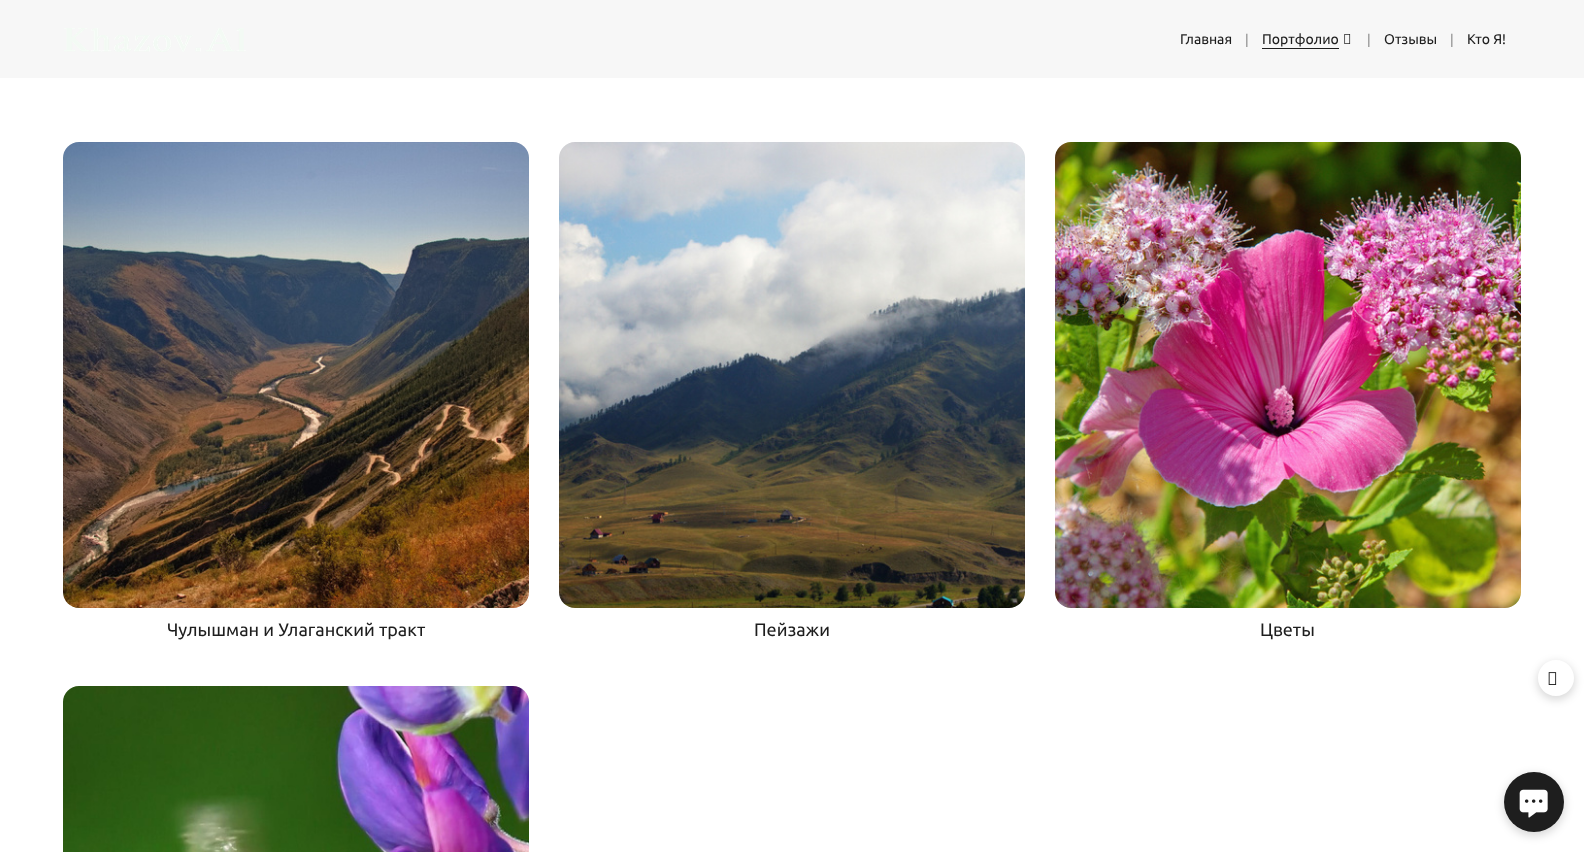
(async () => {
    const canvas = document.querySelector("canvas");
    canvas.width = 1584;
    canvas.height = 852;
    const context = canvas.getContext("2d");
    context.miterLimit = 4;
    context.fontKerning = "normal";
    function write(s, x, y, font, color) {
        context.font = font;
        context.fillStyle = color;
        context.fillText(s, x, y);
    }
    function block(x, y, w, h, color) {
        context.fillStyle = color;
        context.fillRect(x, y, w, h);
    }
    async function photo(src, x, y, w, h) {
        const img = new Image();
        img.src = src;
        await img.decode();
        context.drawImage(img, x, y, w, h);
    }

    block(0, 0, 1584, 852, "rgb(255, 255, 255)");
    block(0, 0, 1584, 78, "rgb(247, 247, 247)");
    await photo("media/1.png", 64, 28, 182, 24);
    write("Главная", 1180, 44, "14px Ubuntu", "rgb(30, 30, 30)");
    write("|", 1245, 44, "14px Liberation Sans", "rgb(139, 139, 139)");
    write("Портфолио", 1262, 44, "14px Ubuntu", "rgb(30, 30, 30)");
    block(1262, 48, 77, 1, "rgb(30, 30, 30)");
    await photo("media/2.png", 1344, 34, 7, 10);
    write("|", 1367, 44, "14px Liberation Sans", "rgb(139, 139, 139)");
    write("Отзывы", 1384, 44, "14px Ubuntu", "rgb(30, 30, 30)");
    write("|", 1450, 44, "14px Liberation Sans", "rgb(139, 139, 139)");
    write("Кто Я!", 1467, 44, "14px Ubuntu", "rgb(30, 30, 30)");
    await photo("media/3.png", 63, 142, 466, 466);
    write("Чулышман и Улаганский тракт", 167, 636, "18px Ubuntu", "rgb(30, 30, 30)");
    await photo("media/4.png", 559, 142, 466, 466);
    write("Пейзажи", 754, 636, "18px Ubuntu", "rgb(30, 30, 30)");
    await photo("media/5.png", 1055, 142, 466, 466);
    write("Цветы", 1260, 636, "18px Ubuntu", "rgb(30, 30, 30)");
    await photo("media/6.png", 63, 686, 466, 166);
    context.save();
    context.beginPath();
    context.moveTo(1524, 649);
    context.lineTo(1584, 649);
    context.lineTo(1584, 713);
    context.lineTo(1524, 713);
    context.closePath();
    context.moveTo(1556, 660);
    context.bezierCurveTo(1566, 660, 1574, 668, 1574, 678);
    context.bezierCurveTo(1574, 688, 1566, 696, 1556, 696);
    context.bezierCurveTo(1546, 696, 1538, 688, 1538, 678);
    context.bezierCurveTo(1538, 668, 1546, 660, 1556, 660);
    context.closePath();
    context.clip("evenodd");
    context.fillStyle = "rgba(0, 0, 0, 0.15)";
    context.filter = "blur(4px)";
    context.beginPath();
    context.roundRect(1537, 662, 38, 38, 19);
    context.fill();
    context.filter = "none";
    context.restore();
    await photo("media/7.png", 1548, 672, 9, 13);
    context.fillStyle = "rgba(0, 0, 0, 0.15)";
    context.filter = "blur(4px)";
    context.beginPath();
    context.roundRect(1503, 774, 62, 62, 31);
    context.fill();
    context.filter = "none";
    context.fillStyle = "rgb(30, 30, 30)";
    context.beginPath();
    context.arc(1534, 802, 30, 0, Math.PI * 2);
    context.fill();
    await photo("media/8.png", 1519, 789, 29, 29);
})();
